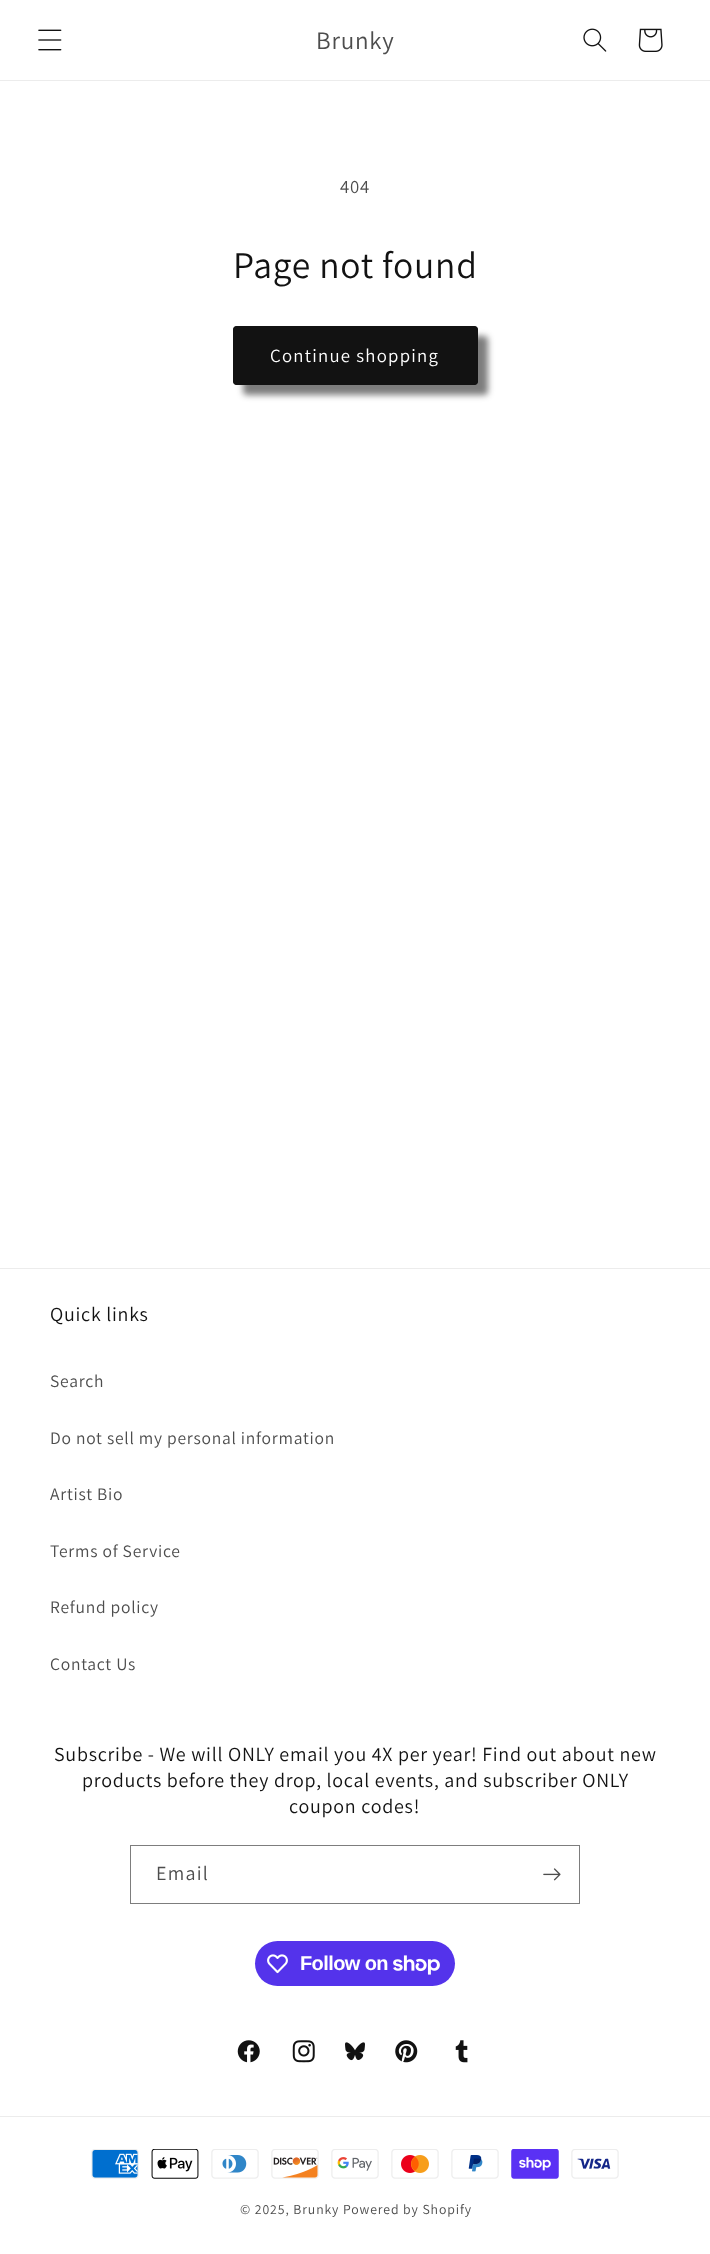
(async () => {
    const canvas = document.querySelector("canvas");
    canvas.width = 710;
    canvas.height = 2254;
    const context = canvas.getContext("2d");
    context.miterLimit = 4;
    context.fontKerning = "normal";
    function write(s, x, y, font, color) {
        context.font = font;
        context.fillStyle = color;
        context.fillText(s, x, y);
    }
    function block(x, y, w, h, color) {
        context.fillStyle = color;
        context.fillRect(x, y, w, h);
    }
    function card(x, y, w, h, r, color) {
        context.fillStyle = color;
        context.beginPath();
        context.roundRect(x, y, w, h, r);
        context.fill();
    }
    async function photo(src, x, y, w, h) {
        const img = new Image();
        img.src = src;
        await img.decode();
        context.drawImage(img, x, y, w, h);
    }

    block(0, 0, 710, 2254, "rgb(255, 255, 255)");
    block(0, 80, 710, 1, "rgb(236, 236, 236)");
    await photo("media/1.png", 38, 29, 24, 22);
    context.letterSpacing = "0.75px";
    write("Brunky", 316, 49, "25px Assistant", "rgb(77, 77, 77)");
    await photo("media/2.png", 583, 28, 24, 24);
    await photo("media/3.png", 638, 28, 25, 24);
    write("404", 340, 193, "18.75px Assistant", "rgb(77, 77, 77)");
    write("Page not found", 233, 278, "37.5px Assistant", "rgb(18, 18, 18)");
    context.fillStyle = "rgba(18, 18, 18, 0.55)";
    context.filter = "blur(3px)";
    context.beginPath();
    context.roundRect(243, 336, 245, 59, 4);
    context.fill();
    context.filter = "none";
    card(233, 326, 245, 59, 4, "rgb(18, 18, 18)");
    context.beginPath();
    context.roundRect(233.5, 326.5, 244, 58, 3.5);
    context.strokeStyle = "rgb(18, 18, 18)";
    context.stroke();
    context.letterSpacing = "1.25px";
    write("Continue shopping", 270, 362, "18.75px Assistant", "rgb(255, 255, 255)");
    block(0, 1268, 710, 1, "rgb(236, 236, 236)");
    context.letterSpacing = "0.75px";
    write("Quick links", 50, 1321, "20px Assistant", "rgb(18, 18, 18)");
    write("Search", 50, 1387, "17.5px Assistant", "rgb(77, 77, 77)");
    write("Do not sell my personal information", 50, 1444, "17.5px Assistant", "rgb(77, 77, 77)");
    write("Artist Bio", 50, 1500, "17.5px Assistant", "rgb(77, 77, 77)");
    write("Terms of Service", 50, 1557, "17.5px Assistant", "rgb(77, 77, 77)");
    write("Refund policy", 50, 1613, "17.5px Assistant", "rgb(77, 77, 77)");
    write("Contact Us", 50, 1670, "17.5px Assistant", "rgb(77, 77, 77)");
    write("Subscribe - We will ONLY email you 4X per year! Find out about new", 54, 1761, "20px Assistant", "rgb(18, 18, 18)");
    write("products before they drop, local events, and subscriber ONLY", 82, 1787, "20px Assistant", "rgb(18, 18, 18)");
    write("coupon codes!", 289, 1813, "20px Assistant", "rgb(18, 18, 18)");
    context.strokeStyle = "rgb(125, 125, 125)";
    context.strokeRect(130.5, 1845.5, 449, 58);
    context.letterSpacing = "1.25px";
    write("Email", 156, 1880, "20px Assistant", "rgb(77, 77, 77)");
    await photo("media/4.png", 543, 1868, 18, 13);
    card(255, 1941, 200, 45, 22.5, "rgb(84, 51, 235)");
    await photo("media/5.png", 267, 1954, 21, 20);
    context.letterSpacing = "-0.6px";
    write("Follow on", 300, 1970, "bold 20px Liberation Sans", "rgb(255, 255, 255)");
    await photo("media/6.png", 393, 1955, 47, 20);
    await photo("media/7.png", 237, 2040, 23, 23);
    await photo("media/8.png", 292, 2040, 23, 23);
    await photo("media/9.png", 345, 2042, 20, 19);
    await photo("media/10.png", 395, 2040, 23, 23);
    await photo("media/11.png", 455, 2040, 13, 23);
    block(0, 2116, 710, 1, "rgb(236, 236, 236)");
    await photo("media/12.png", 91, 2149, 48, 30);
    await photo("media/13.png", 151, 2149, 48, 30);
    await photo("media/14.png", 211, 2149, 48, 30);
    await photo("media/15.png", 271, 2149, 48, 30);
    await photo("media/16.png", 331, 2149, 48, 30);
    await photo("media/17.png", 391, 2149, 48, 30);
    await photo("media/18.png", 451, 2149, 48, 30);
    await photo("media/19.png", 511, 2149, 48, 30);
    await photo("media/20.png", 571, 2149, 48, 30);
    context.letterSpacing = "0.9px";
    write("© 2025, Brunky Powered by Shopify", 240, 2214, "13.75px Assistant", "rgb(77, 77, 77)");
})();
